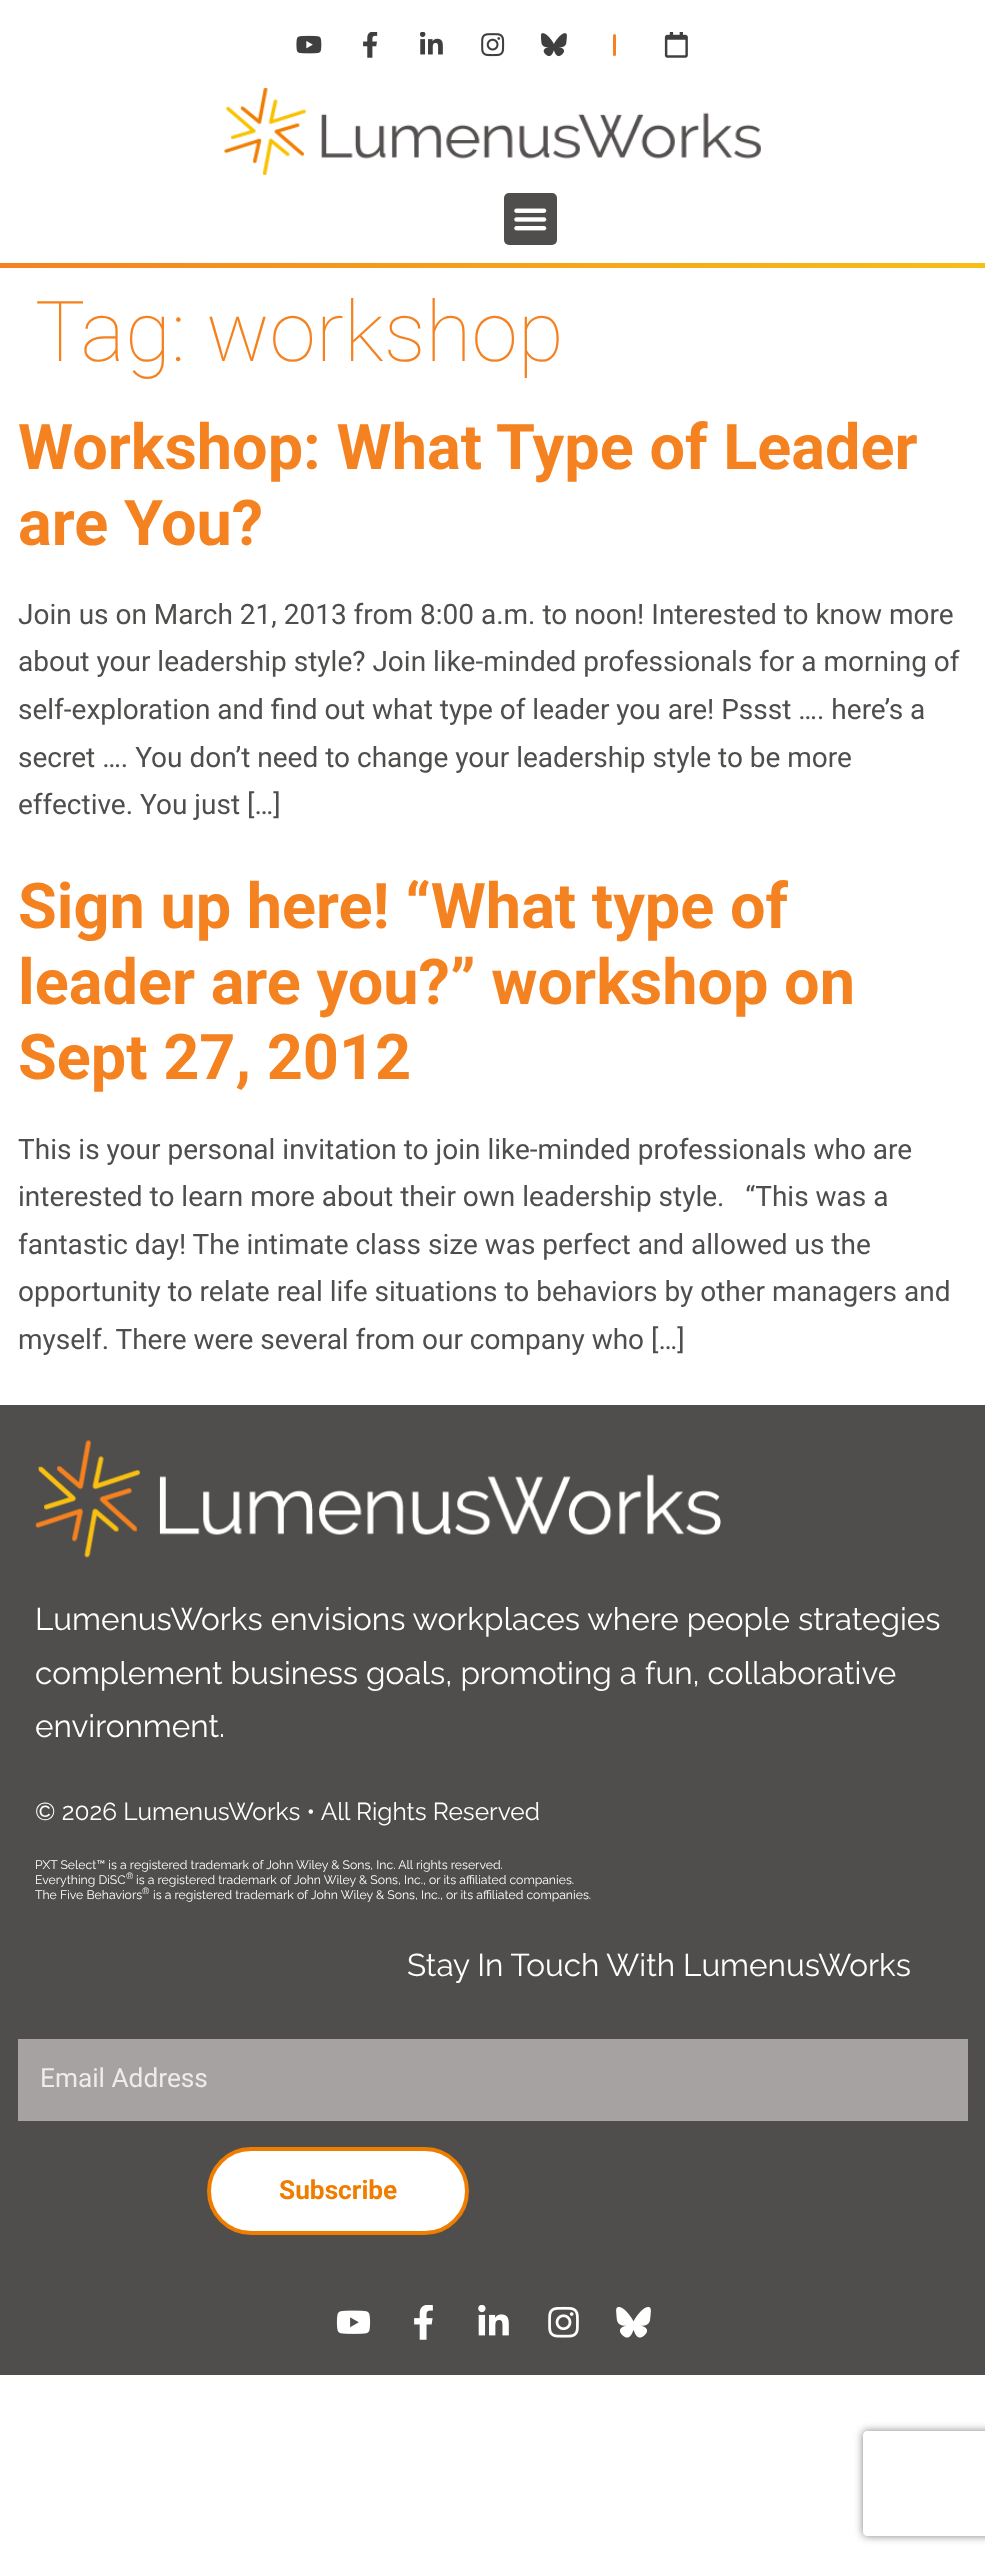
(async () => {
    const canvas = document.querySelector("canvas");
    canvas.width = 985;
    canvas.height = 2559;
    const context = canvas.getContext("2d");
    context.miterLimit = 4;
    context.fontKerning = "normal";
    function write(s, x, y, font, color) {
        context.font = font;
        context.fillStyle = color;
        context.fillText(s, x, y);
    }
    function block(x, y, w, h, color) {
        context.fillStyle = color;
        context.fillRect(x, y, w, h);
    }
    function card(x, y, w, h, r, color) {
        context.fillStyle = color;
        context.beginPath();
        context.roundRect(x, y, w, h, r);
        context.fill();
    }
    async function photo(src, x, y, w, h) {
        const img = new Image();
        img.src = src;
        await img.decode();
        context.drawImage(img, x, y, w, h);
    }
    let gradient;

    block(0, 0, 985, 2559, "rgb(255, 255, 255)");
    await photo("media/1.png", 296, 35, 26, 19);
    await photo("media/2.png", 363, 32, 15, 26);
    await photo("media/3.png", 419, 32, 24, 23);
    await photo("media/4.png", 481, 33, 24, 24);
    await photo("media/5.png", 541, 33, 26, 24);
    card(613, 34, 3, 22, 1.5, "rgb(245, 130, 32)");
    await photo("media/6.png", 664, 32, 24, 26);
    await photo("media/7.png", 224, 88, 537, 87);
    card(504, 193, 53, 52, 5, "rgb(79, 78, 77)");
    await photo("media/8.png", 514, 208, 33, 23);
    gradient = context.createLinearGradient(0, 265, 985, 265);
    gradient.addColorStop(0, "rgb(245, 130, 32)");
    gradient.addColorStop(1, "rgb(246, 191, 22)");
    context.fillStyle = gradient;
    context.fillRect(0, 263, 985, 5);
    write("Tag: workshop", 35, 361, "100 84px Roboto", "rgb(245, 130, 32)");
    write("Workshop: What Type of Leader", 18, 469, "bold 63px Roboto", "rgb(245, 130, 32)");
    write("are You?", 18, 545, "bold 63px Roboto", "rgb(245, 130, 32)");
    write("Join us on March 21, 2013 from 8:00 a.m. to noon! Interested to know more", 18, 624, "28px Roboto", "rgb(79, 78, 77)");
    write("about your leadership style? Join like-minded professionals for a morning of", 18, 671, "28px Roboto", "rgb(79, 78, 77)");
    write("self-exploration and find out what type of leader you are! Pssst …. here’s a", 18, 719, "28px Roboto", "rgb(79, 78, 77)");
    write("secret …. You don’t need to change your leadership style to be more", 18, 767, "28px Roboto", "rgb(79, 78, 77)");
    write("effective. You just […]", 18, 814, "28px Roboto", "rgb(79, 78, 77)");
    write("Sign up here! “What type of", 18, 928, "bold 63px Roboto", "rgb(245, 130, 32)");
    write("leader are you?” workshop on", 18, 1004, "bold 63px Roboto", "rgb(245, 130, 32)");
    write("Sept 27, 2012", 18, 1079, "bold 63px Roboto", "rgb(245, 130, 32)");
    write("This is your personal invitation to join like-minded professionals who are", 18, 1159, "28px Roboto", "rgb(79, 78, 77)");
    write("interested to learn more about their own leadership style.   “This was a", 18, 1206, "28px Roboto", "rgb(79, 78, 77)");
    write("fantastic day! The intimate class size was perfect and allowed us the", 18, 1254, "28px Roboto", "rgb(79, 78, 77)");
    write("opportunity to relate real life situations to behaviors by other managers and", 18, 1301, "28px Roboto", "rgb(79, 78, 77)");
    write("myself. There were several from our company who […]", 18, 1349, "28px Roboto", "rgb(79, 78, 77)");
    block(0, 1405, 985, 970, "rgb(79, 78, 77)");
    await photo("media/9.png", 35, 1440, 686, 118);
    write("LumenusWorks envisions workplaces where people strategies", 35, 1630, "31.5px Raleway", "rgb(255, 255, 255)");
    write("complement business goals, promoting a fun, collaborative", 35, 1684, "31.5px Raleway", "rgb(255, 255, 255)");
    write("environment.", 35, 1737, "31.5px Raleway", "rgb(255, 255, 255)");
    write("© 2026 LumenusWorks • All Rights Reserved", 35, 1820, "24.5px Raleway", "rgb(255, 255, 255)");
    write("PXT Select™ is a registered trademark of John Wiley & Sons, Inc. All rights reserved.", 35, 1869, "12.25px Raleway", "rgb(255, 255, 255)");
    write("Everything DiSC", 35, 1884, "12.25px Raleway", "rgb(255, 255, 255)");
    write("®", 126, 1879, "9px Raleway", "rgb(255, 255, 255)");
    write("is a registered trademark of John Wiley & Sons, Inc., or its affiliated companies.", 136, 1884, "12.25px Raleway", "rgb(255, 255, 255)");
    write("The Five Behaviors", 35, 1899, "12.25px Raleway", "rgb(255, 255, 255)");
    write("®", 142, 1894, "9px Raleway", "rgb(255, 255, 255)");
    write("is a registered trademark of John Wiley & Sons, Inc., or its affiliated companies.", 153, 1899, "12.25px Raleway", "rgb(255, 255, 255)");
    write("Stay In Touch With LumenusWorks", 407, 1976, "31.5px Raleway", "rgb(255, 255, 255)");
    block(18, 2039, 950, 82, "rgb(165, 162, 161)");
    write("Email Address", 40, 2087, "26.25px Roboto", "rgb(237, 236, 236)");
    context.fillStyle = "rgb(255, 255, 255)";
    context.beginPath();
    context.roundRect(209, 2149, 258, 84, 42);
    context.fill();
    context.strokeStyle = "rgb(239, 125, 0)";
    context.lineWidth = 4;
    context.stroke();
    write("Subscribe", 279, 2199, "bold 26.25px Roboto", "rgb(239, 125, 0)");
    await photo("media/10.png", 336, 2310, 35, 24);
    await photo("media/11.png", 414, 2305, 19, 35);
    await photo("media/12.png", 478, 2305, 31, 31);
    await photo("media/13.png", 548, 2306, 31, 32);
    await photo("media/14.png", 616, 2306, 35, 32);
    context.save();
    context.beginPath();
    context.moveTo(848, 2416);
    context.lineTo(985, 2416);
    context.lineTo(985, 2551);
    context.lineTo(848, 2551);
    context.closePath();
    context.moveTo(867, 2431);
    context.lineTo(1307, 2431);
    context.bezierCurveTo(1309, 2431, 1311, 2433, 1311, 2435);
    context.lineTo(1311, 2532);
    context.bezierCurveTo(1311, 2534, 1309, 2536, 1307, 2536);
    context.lineTo(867, 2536);
    context.bezierCurveTo(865, 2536, 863, 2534, 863, 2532);
    context.lineTo(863, 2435);
    context.bezierCurveTo(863, 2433, 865, 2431, 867, 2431);
    context.closePath();
    context.clip("evenodd");
    context.fillStyle = "rgb(128, 128, 128)";
    context.filter = "blur(4.5px)";
    context.beginPath();
    context.roundRect(863, 2431, 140, 105, 4);
    context.fill();
    context.filter = "none";
    context.restore();
})();
